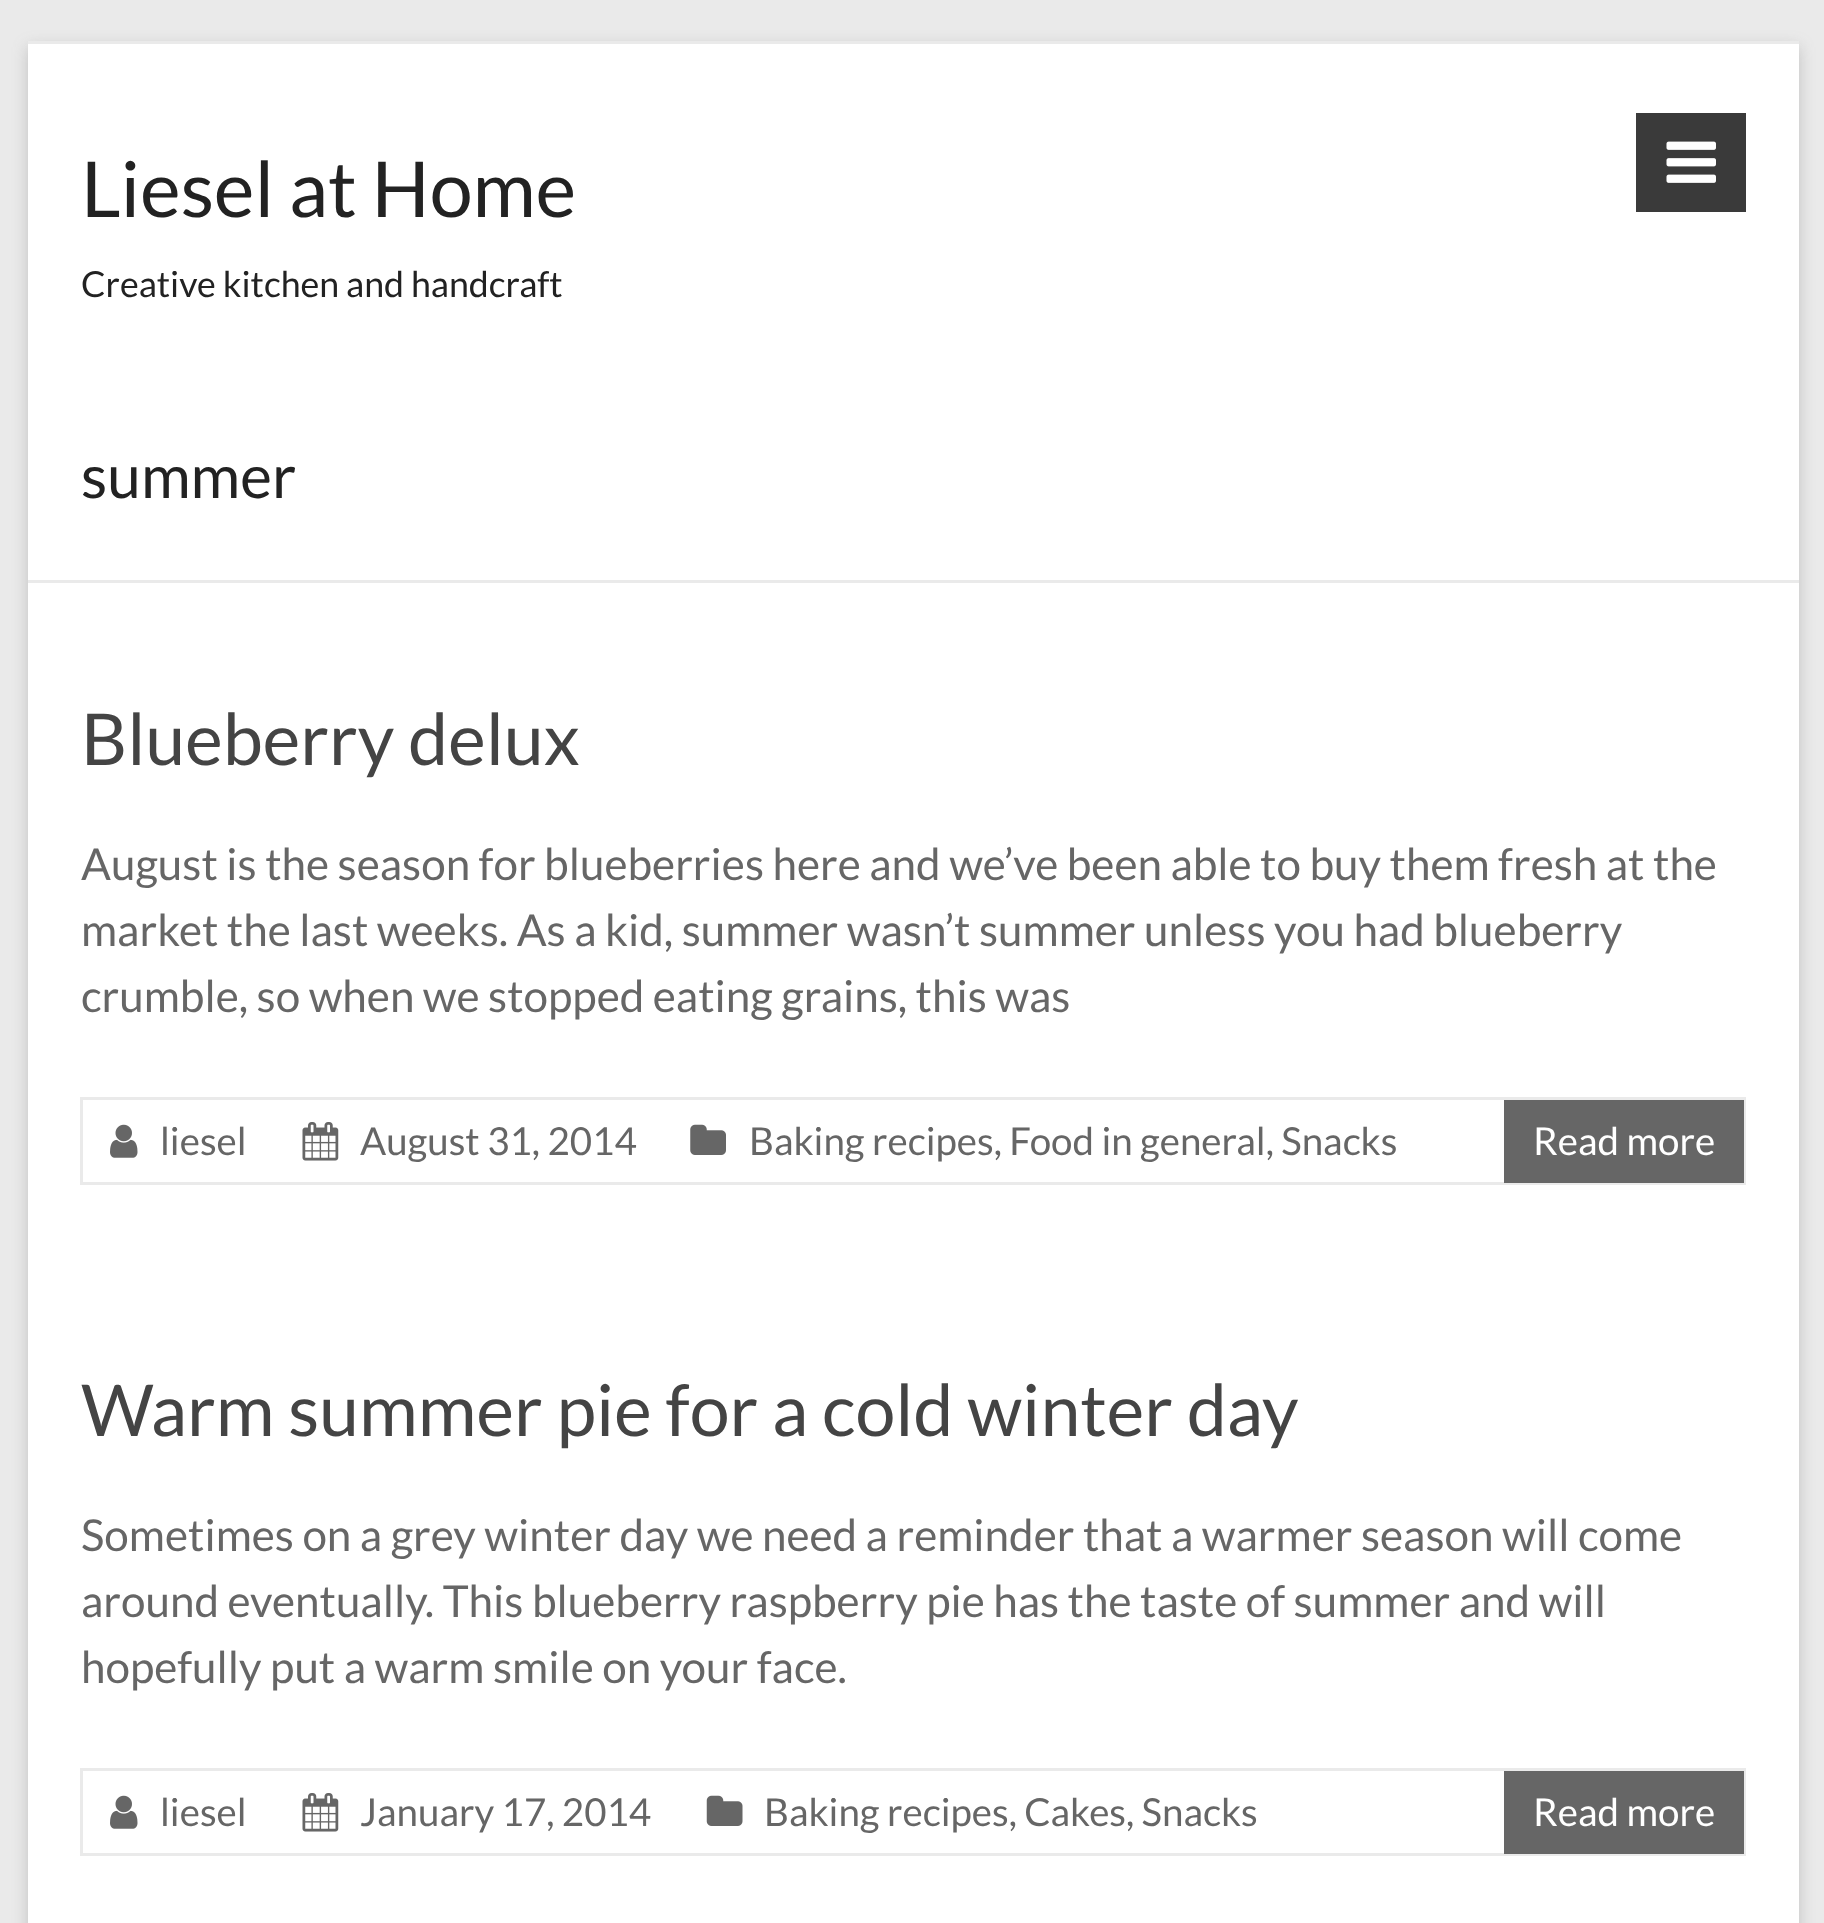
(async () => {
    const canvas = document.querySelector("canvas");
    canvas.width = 1824;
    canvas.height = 1923;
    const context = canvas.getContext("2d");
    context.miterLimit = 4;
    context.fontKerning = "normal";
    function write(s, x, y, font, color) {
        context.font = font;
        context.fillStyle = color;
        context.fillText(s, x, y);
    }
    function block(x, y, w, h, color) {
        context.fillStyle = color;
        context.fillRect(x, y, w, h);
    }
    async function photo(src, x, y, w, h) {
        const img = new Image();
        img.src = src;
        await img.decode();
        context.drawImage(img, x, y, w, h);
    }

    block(0, 0, 1824, 1923, "rgb(234, 234, 234)");
    context.fillStyle = "rgba(100, 100, 100, 0.3)";
    context.filter = "blur(8px)";
    context.beginPath();
    context.rect(28, 47, 1771, 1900);
    context.fill();
    context.filter = "none";
    block(28, 44, 1771, 1879, "rgb(255, 255, 255)");
    block(28, 41, 1771, 3, "rgb(234, 234, 234)");
    write("Liesel at Home", 81, 217, "77px Lato", "rgb(34, 34, 34)");
    write("Creative kitchen and handcraft", 81, 297, "35.75px Lato", "rgb(34, 34, 34)");
    block(1636, 113, 110, 99, "rgb(58, 58, 58)");
    await photo("media/1.png", 1666, 141, 50, 42);
    block(28, 580, 1771, 3, "rgb(234, 234, 234)");
    write("summer", 81, 498, "60.5px Lato", "rgb(34, 34, 34)");
    write("Blueberry delux", 81, 765, "71.5px Lato", "rgb(68, 68, 68)");
    write("August is the season for blueberries here and we’ve been able to buy them fresh at the", 81, 880, "44px Lato", "rgb(102, 102, 102)");
    write("market the last weeks. As a kid, summer wasn’t summer unless you had blueberry", 81, 946, "44px Lato", "rgb(102, 102, 102)");
    write("crumble, so when we stopped eating grains, this was", 81, 1012, "44px Lato", "rgb(102, 102, 102)");
    context.strokeStyle = "rgb(234, 234, 234)";
    context.lineWidth = 3;
    context.strokeRect(81.5, 1098.5, 1663, 85);
    await photo("media/2.png", 110, 1124, 28, 34);
    write("liesel", 160, 1155, "38.5px Lato", "rgb(102, 102, 102)");
    await photo("media/3.png", 302, 1122, 37, 39);
    write("August 31, 2014", 360, 1155, "38.5px Lato", "rgb(102, 102, 102)");
    await photo("media/4.png", 690, 1124, 36, 31);
    write("Baking recipes, Food in general, Snacks", 749, 1155, "38.5px Lato", "rgb(102, 102, 102)");
    block(1504, 1100, 240, 83, "rgb(102, 102, 102)");
    write("Read more", 1533, 1155, "38.5px Lato", "rgb(255, 255, 255)");
    write("Warm summer pie for a cold winter day", 81, 1436, "71.5px Lato", "rgb(68, 68, 68)");
    write("Sometimes on a grey winter day we need a reminder that a warmer season will come", 81, 1551, "44px Lato", "rgb(102, 102, 102)");
    write("around eventually. This blueberry raspberry pie has the taste of summer and will", 81, 1617, "44px Lato", "rgb(102, 102, 102)");
    write("hopefully put a warm smile on your face.", 81, 1683, "44px Lato", "rgb(102, 102, 102)");
    context.strokeRect(81.5, 1769.5, 1663, 85);
    await photo("media/2.png", 110, 1795, 28, 34);
    write("liesel", 160, 1826, "38.5px Lato", "rgb(102, 102, 102)");
    await photo("media/3.png", 302, 1793, 37, 39);
    write("January 17, 2014", 360, 1826, "38.5px Lato", "rgb(102, 102, 102)");
    await photo("media/5.png", 706, 1795, 37, 31);
    write("Baking recipes, Cakes, Snacks", 764, 1826, "38.5px Lato", "rgb(102, 102, 102)");
    block(1504, 1771, 240, 83, "rgb(102, 102, 102)");
    write("Read more", 1533, 1826, "38.5px Lato", "rgb(255, 255, 255)");
})();
